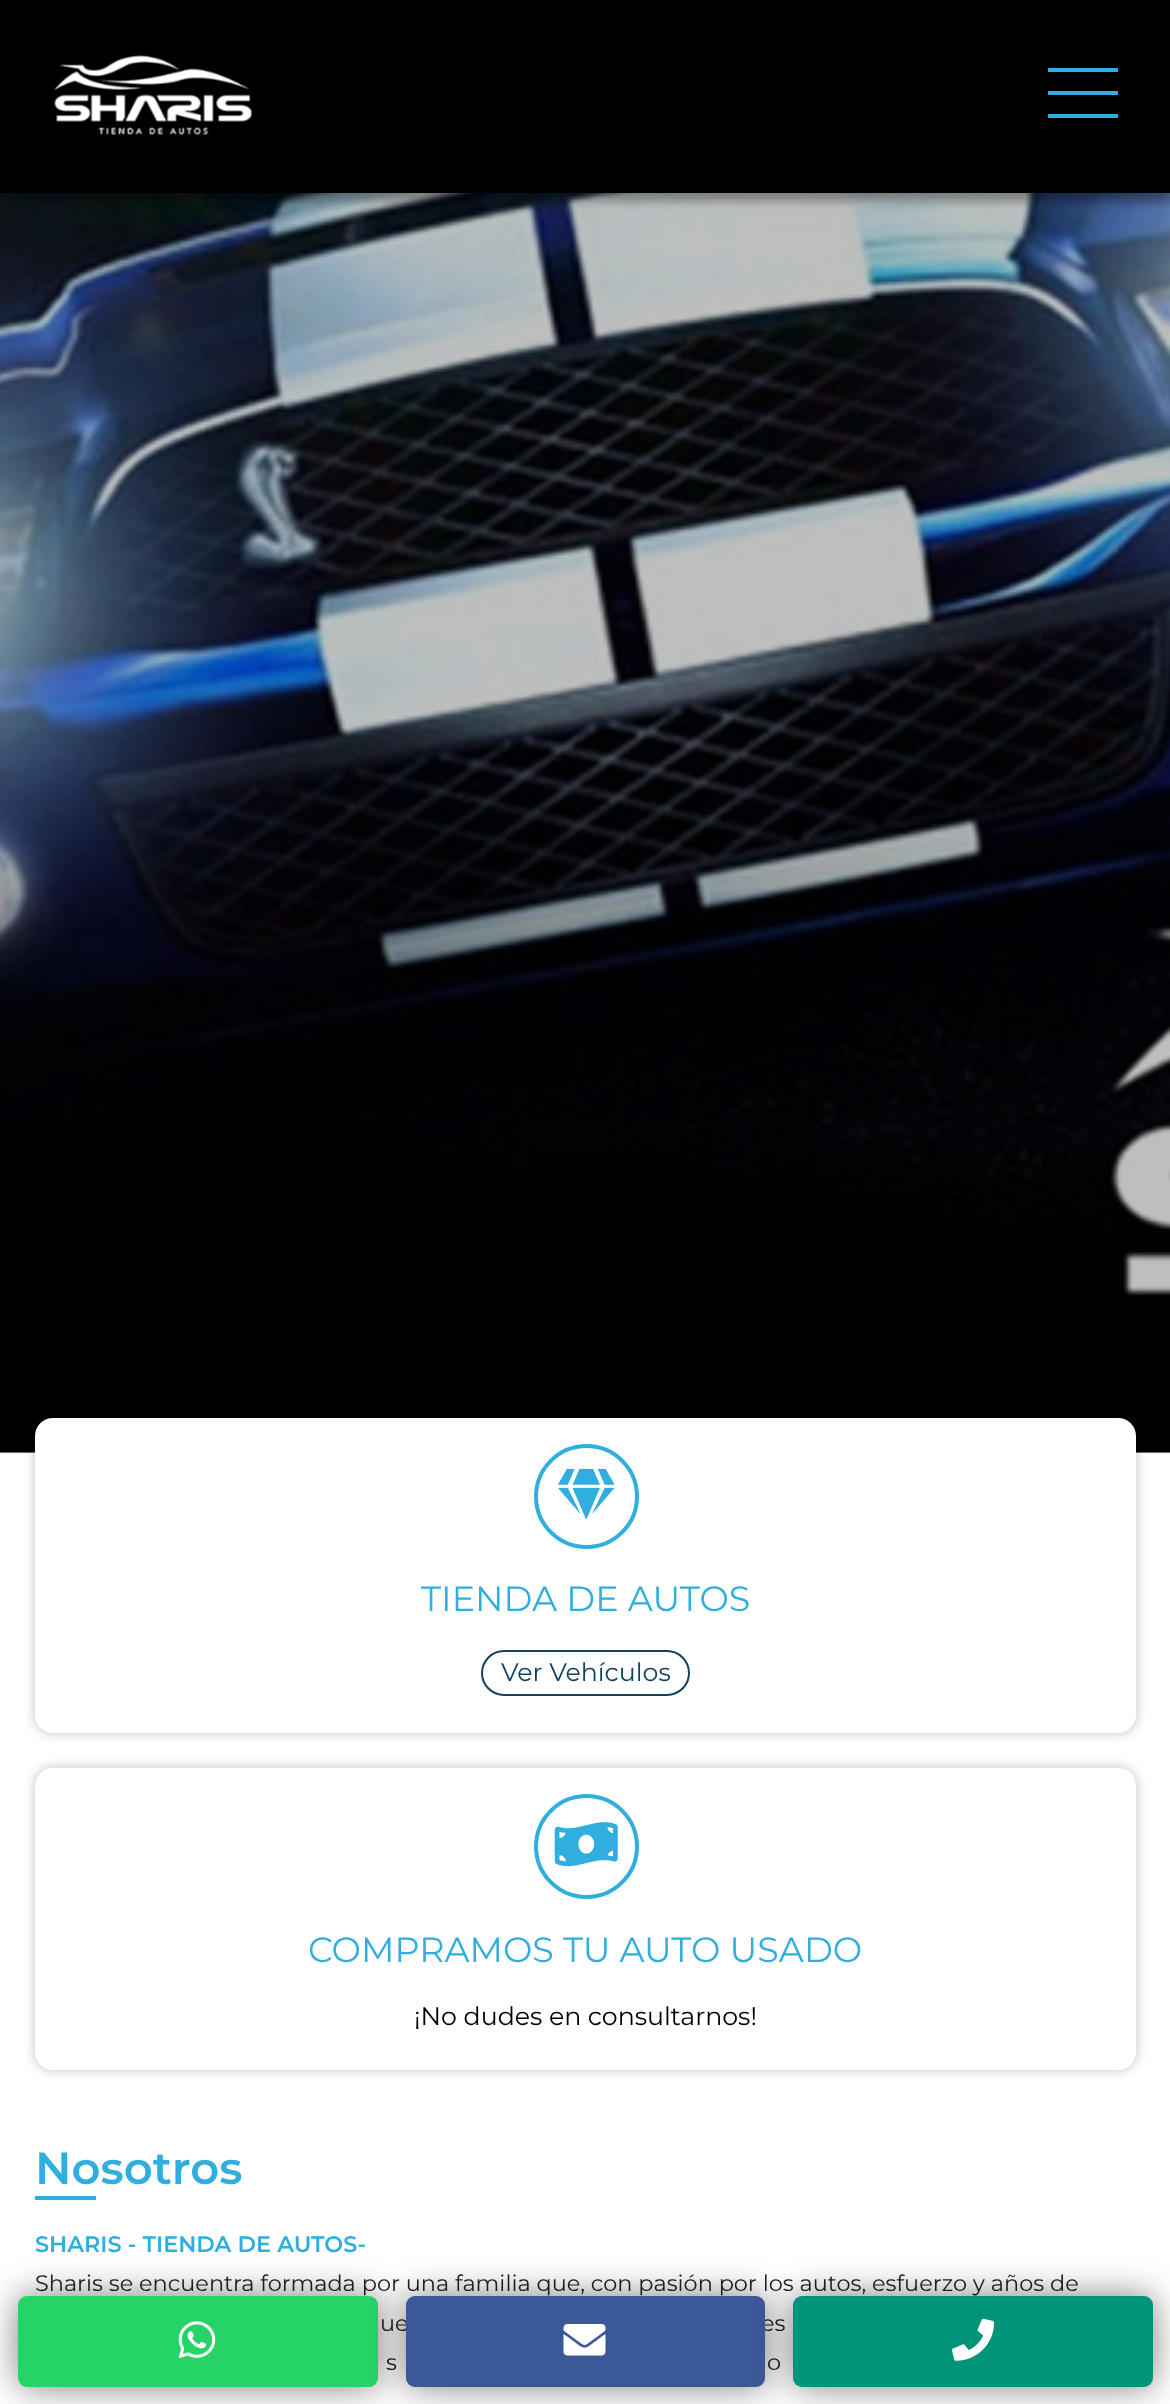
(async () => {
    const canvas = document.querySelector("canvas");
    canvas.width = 1170;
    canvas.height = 2404;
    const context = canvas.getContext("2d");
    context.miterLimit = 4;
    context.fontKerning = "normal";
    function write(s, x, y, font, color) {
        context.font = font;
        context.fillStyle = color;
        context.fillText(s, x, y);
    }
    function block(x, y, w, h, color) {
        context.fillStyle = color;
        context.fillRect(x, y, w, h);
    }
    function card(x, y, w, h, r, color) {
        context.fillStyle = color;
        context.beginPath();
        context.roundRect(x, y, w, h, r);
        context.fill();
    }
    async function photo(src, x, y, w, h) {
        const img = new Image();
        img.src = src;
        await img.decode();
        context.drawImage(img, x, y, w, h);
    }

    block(0, 0, 1170, 2404, "rgb(255, 255, 255)");
    block(0, 1452, 1170, 1, "rgb(143, 143, 143)");
    await photo("media/2.png", 0, 193, 1170, 1260);
    context.fillStyle = "rgba(0, 0, 0, 0.33)";
    context.filter = "blur(5px)";
    context.beginPath();
    context.rect(0, 9, 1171, 192);
    context.fill();
    context.filter = "none";
    block(0, 0, 1170, 193, "rgb(0, 0, 0)");
    await photo("media/1.png", 54, 55, 198, 80);
    block(1048, 91, 70, 4, "rgb(48, 174, 223)");
    block(1048, 68, 70, 4, "rgb(48, 174, 223)");
    block(1048, 114, 70, 4, "rgb(48, 174, 223)");
    context.fillStyle = "rgba(0, 0, 0, 0.25)";
    context.filter = "blur(6px)";
    context.beginPath();
    context.roundRect(35, 1418, 1101, 315, 18);
    context.fill();
    context.filter = "none";
    card(35, 1418, 1101, 315, 18, "rgb(255, 255, 255)");
    context.beginPath();
    context.arc(586.5, 1496.5, 50.5, 0, Math.PI * 2);
    context.strokeStyle = "rgb(48, 174, 223)";
    context.lineWidth = 4;
    context.stroke();
    await photo("media/3.png", 558, 1468, 57, 52);
    write("TIENDA DE AUTOS", 421, 1611, "35px Montserrat", "rgb(48, 174, 223)");
    context.beginPath();
    context.roundRect(482, 1651, 207, 44, 22);
    context.strokeStyle = "rgb(16, 67, 96)";
    context.lineWidth = 2;
    context.stroke();
    write("Ver Vehículos", 501, 1681, "25.25px Montserrat", "rgb(16, 67, 96)");
    context.fillStyle = "rgba(0, 0, 0, 0.25)";
    context.filter = "blur(6px)";
    context.beginPath();
    context.roundRect(35, 1768, 1101, 302, 18);
    context.fill();
    context.filter = "none";
    card(35, 1768, 1101, 302, 18, "rgb(255, 255, 255)");
    context.beginPath();
    context.arc(586.5, 1846.5, 50.5, 0, Math.PI * 2);
    context.strokeStyle = "rgb(48, 174, 223)";
    context.lineWidth = 4;
    context.stroke();
    await photo("media/4.png", 554, 1822, 64, 45);
    write("COMPRAMOS TU AUTO USADO", 308, 1962, "35px Montserrat", "rgb(48, 174, 223)");
    write("¡No dudes en consultarnos!", 414, 2025, "25.25px Montserrat", "rgb(0, 0, 0)");
    write("Nosotros", 35, 2184, "600 45px Montserrat", "rgb(48, 174, 223)");
    block(35, 2196, 61, 4, "rgb(48, 174, 223)");
    write("SHARIS - TIENDA DE AUTOS-", 35, 2252, "600 22.4px Montserrat", "rgb(48, 174, 223)");
    write("Sharis se encuentra formada por una familia que, con pasión por los autos, esfuerzo y años de", 35, 2291, "22.4px Montserrat", "rgb(34, 34, 34)");
    write("ue", 380, 2331, "22.4px Montserrat", "rgb(34, 34, 34)");
    write("es", 761, 2331, "22.4px Montserrat", "rgb(34, 34, 34)");
    write("s", 386, 2370, "22.4px Montserrat", "rgb(34, 34, 34)");
    write("o", 767, 2370, "22.4px Montserrat", "rgb(34, 34, 34)");
    context.fillStyle = "rgba(0, 0, 0, 0.5)";
    context.filter = "blur(17.5px)";
    context.beginPath();
    context.roundRect(18, 2296, 360, 91, 9);
    context.fill();
    context.filter = "none";
    card(18, 2296, 360, 91, 9, "rgb(37, 211, 102)");
    await photo("media/5.png", 178, 2321, 38, 38);
    context.fillStyle = "rgba(0, 0, 0, 0.5)";
    context.filter = "blur(17.5px)";
    context.beginPath();
    context.roundRect(406, 2296, 359, 91, 9);
    context.fill();
    context.filter = "none";
    card(406, 2296, 359, 91, 9, "rgb(59, 89, 152)");
    await photo("media/6.png", 563, 2324, 43, 32);
    context.fillStyle = "rgba(0, 0, 0, 0.5)";
    context.filter = "blur(17.5px)";
    context.beginPath();
    context.roundRect(793, 2296, 360, 91, 9);
    context.fill();
    context.filter = "none";
    card(793, 2296, 360, 91, 9, "rgb(0, 148, 121)");
    await photo("media/7.png", 952, 2318, 42, 43);
})();
